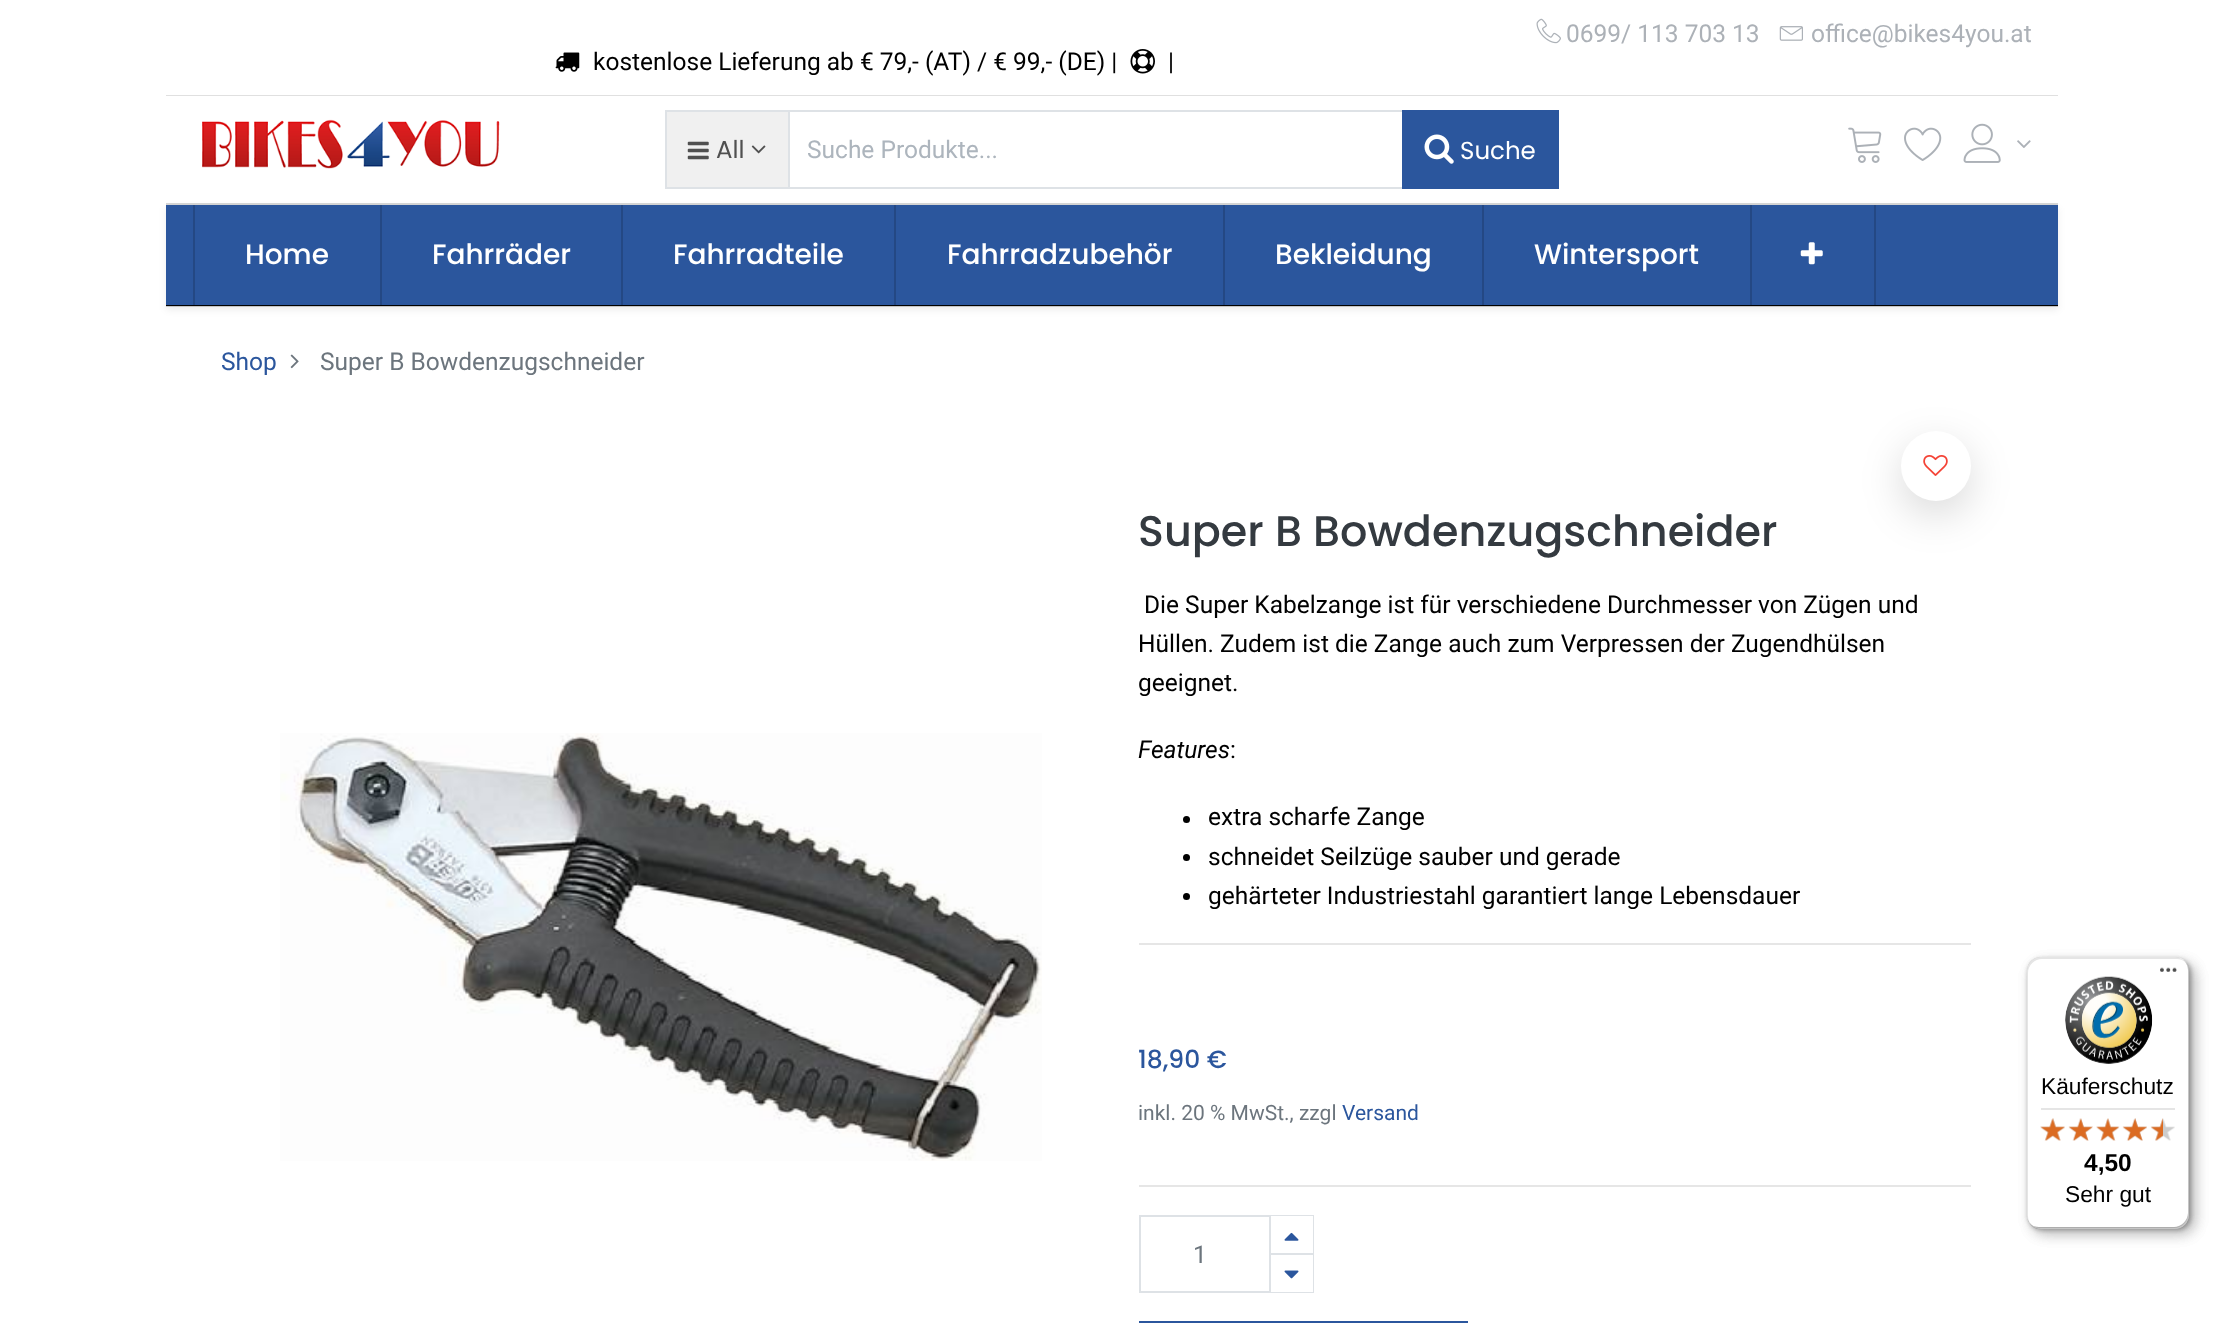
(async () => {
    const canvas = document.querySelector("canvas");
    canvas.width = 2224;
    canvas.height = 1323;
    const context = canvas.getContext("2d");
    context.miterLimit = 4;
    context.fontKerning = "normal";
    function write(s, x, y, font, color) {
        context.font = font;
        context.fillStyle = color;
        context.fillText(s, x, y);
    }
    function block(x, y, w, h, color) {
        context.fillStyle = color;
        context.fillRect(x, y, w, h);
    }
    function card(x, y, w, h, r, color) {
        context.fillStyle = color;
        context.beginPath();
        context.roundRect(x, y, w, h, r);
        context.fill();
    }
    async function photo(src, x, y, w, h) {
        const img = new Image();
        img.src = src;
        await img.decode();
        context.drawImage(img, x, y, w, h);
    }

    block(0, 0, 2224, 1323, "rgb(255, 255, 255)");
    block(166, 95, 1892, 1, "rgb(224, 224, 224)");
    await photo("media/1.png", 1536, 18, 25, 26);
    write("0699/ 113 703 13", 1566, 42, "24.5px Roboto", "rgb(172, 177, 183)");
    await photo("media/2.png", 1779, 26, 24, 15);
    write("office@bikes4you.at", 1811, 42, "24.5px Roboto", "rgb(172, 177, 183)");
    await photo("media/3.png", 555, 52, 25, 20);
    write("kostenlose Lieferung ab € 79,- (AT) / € 99,- (DE) |", 593, 70, "24.5px Roboto", "rgb(0, 0, 0)");
    await photo("media/4.png", 1130, 49, 25, 25);
    write("|", 1168, 70, "24.5px Roboto", "rgb(0, 0, 0)");
    block(166, 203, 1892, 2, "rgb(214, 214, 214)");
    await photo("media/5.png", 202, 119, 298, 50);
    block(667, 112, 121, 75, "rgb(240, 240, 240)");
    block(665, 110, 123, 2, "rgb(222, 226, 230)");
    block(665, 187, 123, 2, "rgb(222, 226, 230)");
    block(665, 110, 2, 79, "rgb(222, 226, 230)");
    await photo("media/6.png", 687, 141, 22, 19);
    write("All", 716, 158, "24.5px Poppins", "rgb(80, 80, 80)");
    await photo("media/7.png", 751, 145, 15, 9);
    context.strokeStyle = "rgb(222, 226, 230)";
    context.lineWidth = 2;
    context.strokeRect(789, 111, 614, 77);
    write("Suche Produkte...", 807, 158, "24.5px Roboto", "rgb(173, 181, 189)");
    block(1402, 110, 157, 79, "rgb(43, 86, 157)");
    await photo("media/8.png", 1424, 134, 30, 30);
    write("Suche", 1460, 159, "24.5px Poppins", "rgb(255, 255, 255)");
    await photo("media/9.png", 1848, 127, 34, 36);
    await photo("media/10.png", 1904, 127, 38, 34);
    await photo("media/11.png", 1963, 123, 38, 40);
    await photo("media/12.png", 2017, 140, 14, 8);
    context.fillStyle = "rgba(0, 0, 0, 0.07)";
    context.filter = "blur(3.5px)";
    context.beginPath();
    context.rect(166, 208, 1892, 102);
    context.fill();
    context.filter = "none";
    block(166, 305, 1892, 1, "rgb(0, 0, 0)");
    block(166, 306, 1892, 1, "rgba(0, 0, 0, 0.18)");
    block(166, 205, 1892, 100, "rgb(43, 86, 157)");
    block(380, 205, 2, 100, "rgb(36, 72, 132)");
    block(193, 205, 2, 100, "rgb(36, 72, 132)");
    write("Home", 245, 264, "500 28px Poppins", "rgb(255, 255, 255)");
    block(621, 205, 2, 100, "rgb(36, 72, 132)");
    write("Fahrräder", 432, 264, "500 28px Poppins", "rgb(255, 255, 255)");
    block(894, 205, 2, 100, "rgb(36, 72, 132)");
    write("Fahrradteile", 673, 264, "500 28px Poppins", "rgb(255, 255, 255)");
    block(1223, 205, 2, 100, "rgb(36, 72, 132)");
    write("Fahrradzubehör", 947, 264, "500 28px Poppins", "rgb(255, 255, 255)");
    block(1482, 205, 2, 100, "rgb(36, 72, 132)");
    write("Bekleidung", 1275, 264, "500 28px Poppins", "rgb(255, 255, 255)");
    block(1750, 205, 2, 100, "rgb(36, 72, 132)");
    write("Wintersport", 1534, 264, "500 28px Poppins", "rgb(255, 255, 255)");
    block(1874, 205, 2, 100, "rgb(36, 72, 132)");
    await photo("media/13.png", 1800, 242, 23, 23);
    write("Shop", 221, 370, "24.5px Roboto", "rgb(43, 86, 157)");
    await photo("media/14.png", 290, 354, 9, 15);
    write("Super B Bowdenzugschneider", 320, 370, "24.5px Roboto", "rgb(108, 117, 125)");
    await photo("media/15.png", 280, 733, 762, 428);
    write("Super B Bowdenzugschneider", 1138, 546, "500 42.9px Poppins", "rgb(52, 58, 64)");
    write("Die Super Kabelzange ist für verschiedene Durchmesser von Zügen und", 1144, 613, "24.5px Roboto", "rgb(0, 0, 0)");
    write("Hüllen. Zudem ist die Zange auch zum Verpressen der Zugendhülsen", 1138, 652, "24.5px Roboto", "rgb(0, 0, 0)");
    write("geeignet.", 1138, 691, "24.5px Roboto", "rgb(0, 0, 0)");
    write("Features", 1138, 758, "italic 24.5px Roboto", "rgb(0, 0, 0)");
    write(":", 1230, 758, "24.5px Roboto", "rgb(0, 0, 0)");
    context.beginPath();
    context.arc(1186.5, 819.5, 3.5, 0, Math.PI * 2);
    context.fill();
    write("extra scharfe Zange", 1208, 825, "24.5px Roboto", "rgb(0, 0, 0)");
    context.beginPath();
    context.arc(1186.5, 857.5, 3.5, 0, Math.PI * 2);
    context.fill();
    write("schneidet Seilzüge sauber und gerade", 1208, 865, "24.5px Roboto", "rgb(0, 0, 0)");
    context.beginPath();
    context.arc(1186.5, 896.5, 3.5, 0, Math.PI * 2);
    context.fill();
    write("gehärteter Industriestahl garantiert lange Lebensdauer", 1208, 904, "24.5px Roboto", "rgb(0, 0, 0)");
    block(1139, 943, 832, 2, "rgb(230, 230, 230)");
    context.fillStyle = "rgba(0, 0, 0, 0.15)";
    context.filter = "blur(21px)";
    context.beginPath();
    context.roundRect(1901, 445, 70, 70, 35);
    context.fill();
    context.filter = "none";
    context.fillStyle = "rgb(255, 255, 255)";
    context.beginPath();
    context.arc(1936, 466, 35, 0, Math.PI * 2);
    context.fill();
    await photo("media/16.png", 1923, 455, 25, 21);
    write("18,90 €", 1138, 1068, "500 25px Poppins", "rgb(43, 86, 157)");
    write("inkl. 20 % MwSt., zzgl", 1138, 1120, "21px Roboto", "rgb(108, 117, 125)");
    write("Versand", 1342, 1120, "21px Roboto", "rgb(43, 86, 157)");
    block(1139, 1185, 832, 2, "rgb(230, 230, 230)");
    context.strokeRect(1140, 1216, 173, 76);
    write("1", 1193, 1263, "24.5px Roboto", "rgb(108, 117, 125)");
    block(1271, 1216, 42, 37, "rgb(255, 255, 255)");
    block(1269, 1253, 2, 39, "rgb(222, 226, 230)");
    block(1269, 1253, 44, 2, "rgb(222, 226, 230)");
    block(1269, 1216, 2, 39, "rgb(222, 226, 230)");
    await photo("media/17.png", 1284, 1232, 15, 9);
    block(1271, 1255, 42, 37, "rgb(255, 255, 255)");
    await photo("media/18.png", 1284, 1270, 15, 9);
    block(1139, 1321, 329, 2, "rgb(43, 86, 157)");
    context.fillStyle = "rgba(0, 0, 0, 0.15)";
    context.filter = "blur(7px)";
    context.beginPath();
    context.roundRect(2032, 963, 163, 271, 14);
    context.fill();
    context.filter = "none";
    context.filter = "blur(2px)";
    context.beginPath();
    context.roundRect(2028, 959, 163, 271, 14);
    context.fill();
    context.filter = "none";
    context.fillStyle = "rgba(0, 0, 0, 0.1)";
    context.beginPath();
    context.moveTo(2042, 959);
    context.lineTo(2177, 959);
    context.bezierCurveTo(2180, 959, 2183, 960, 2185, 962);
    context.bezierCurveTo(2183, 959, 2179, 957, 2175, 957);
    context.lineTo(2041, 957);
    context.bezierCurveTo(2033, 957, 2027, 963, 2027, 971);
    context.lineTo(2027, 1215);
    context.bezierCurveTo(2027, 1220, 2029, 1224, 2033, 1226);
    context.bezierCurveTo(2030, 1224, 2028, 1220, 2028, 1216);
    context.lineTo(2028, 973);
    context.bezierCurveTo(2028, 965, 2035, 959, 2042, 959);
    context.closePath();
    context.fill();
    context.fillStyle = "rgba(0, 0, 0, 0.2)";
    context.beginPath();
    context.moveTo(2030, 1223);
    context.bezierCurveTo(2032, 1227, 2036, 1229, 2041, 1229);
    context.lineTo(2175, 1229);
    context.bezierCurveTo(2183, 1229, 2189, 1223, 2189, 1215);
    context.lineTo(2189, 971);
    context.bezierCurveTo(2189, 966, 2187, 962, 2183, 960);
    context.bezierCurveTo(2186, 962, 2188, 966, 2188, 970);
    context.lineTo(2188, 1213);
    context.bezierCurveTo(2188, 1220, 2181, 1227, 2174, 1227);
    context.lineTo(2039, 1227);
    context.bezierCurveTo(2035, 1227, 2032, 1226, 2030, 1223);
    context.closePath();
    context.fill();
    context.fillStyle = "rgba(50, 50, 50, 0.2)";
    context.beginPath();
    context.moveTo(2030, 1223);
    context.bezierCurveTo(2032, 1227, 2036, 1229, 2041, 1229);
    context.lineTo(2175, 1229);
    context.bezierCurveTo(2183, 1229, 2189, 1223, 2189, 1215);
    context.lineTo(2189, 971);
    context.bezierCurveTo(2189, 967, 2188, 964, 2185, 962);
    context.bezierCurveTo(2187, 964, 2188, 967, 2188, 970);
    context.lineTo(2188, 1213);
    context.bezierCurveTo(2188, 1221, 2182, 1227, 2174, 1227);
    context.lineTo(2039, 1227);
    context.bezierCurveTo(2036, 1227, 2032, 1226, 2030, 1223);
    context.closePath();
    context.fill();
    context.fillStyle = "rgba(255, 255, 255, 0.3)";
    context.beginPath();
    context.moveTo(2030, 1223);
    context.bezierCurveTo(2032, 1227, 2036, 1229, 2041, 1229);
    context.lineTo(2175, 1229);
    context.bezierCurveTo(2183, 1229, 2189, 1223, 2189, 1215);
    context.lineTo(2189, 971);
    context.bezierCurveTo(2189, 966, 2187, 962, 2184, 960);
    context.bezierCurveTo(2186, 963, 2188, 966, 2188, 970);
    context.lineTo(2188, 1214);
    context.bezierCurveTo(2188, 1221, 2182, 1228, 2174, 1228);
    context.lineTo(2040, 1228);
    context.bezierCurveTo(2036, 1228, 2032, 1226, 2030, 1223);
    context.closePath();
    context.fill();
    context.fillStyle = "rgba(0, 0, 0, 0.15)";
    context.filter = "blur(7px)";
    context.beginPath();
    context.roundRect(2032, 963, 163, 271, 14);
    context.fill();
    context.filter = "none";
    context.filter = "blur(2px)";
    context.beginPath();
    context.roundRect(2028, 959, 163, 271, 14);
    context.fill();
    context.filter = "none";
    card(2027, 957, 162, 272, 14, "rgb(255, 255, 255)");
    context.fillStyle = "rgba(0, 0, 0, 0.1)";
    context.beginPath();
    context.moveTo(2042, 959);
    context.lineTo(2177, 959);
    context.bezierCurveTo(2180, 959, 2183, 960, 2185, 962);
    context.bezierCurveTo(2183, 959, 2179, 957, 2175, 957);
    context.lineTo(2041, 957);
    context.bezierCurveTo(2033, 957, 2027, 963, 2027, 971);
    context.lineTo(2027, 1215);
    context.bezierCurveTo(2027, 1220, 2029, 1224, 2033, 1226);
    context.bezierCurveTo(2030, 1224, 2028, 1220, 2028, 1216);
    context.lineTo(2028, 973);
    context.bezierCurveTo(2028, 965, 2035, 959, 2042, 959);
    context.closePath();
    context.fill();
    context.fillStyle = "rgba(0, 0, 0, 0.2)";
    context.beginPath();
    context.moveTo(2030, 1223);
    context.bezierCurveTo(2032, 1227, 2036, 1229, 2041, 1229);
    context.lineTo(2175, 1229);
    context.bezierCurveTo(2183, 1229, 2189, 1223, 2189, 1215);
    context.lineTo(2189, 971);
    context.bezierCurveTo(2189, 966, 2187, 962, 2183, 960);
    context.bezierCurveTo(2186, 962, 2188, 966, 2188, 970);
    context.lineTo(2188, 1213);
    context.bezierCurveTo(2188, 1220, 2181, 1227, 2174, 1227);
    context.lineTo(2039, 1227);
    context.bezierCurveTo(2035, 1227, 2032, 1226, 2030, 1223);
    context.closePath();
    context.fill();
    context.fillStyle = "rgba(50, 50, 50, 0.2)";
    context.beginPath();
    context.moveTo(2030, 1223);
    context.bezierCurveTo(2032, 1227, 2036, 1229, 2041, 1229);
    context.lineTo(2175, 1229);
    context.bezierCurveTo(2183, 1229, 2189, 1223, 2189, 1215);
    context.lineTo(2189, 971);
    context.bezierCurveTo(2189, 967, 2188, 964, 2185, 962);
    context.bezierCurveTo(2187, 964, 2188, 967, 2188, 970);
    context.lineTo(2188, 1213);
    context.bezierCurveTo(2188, 1221, 2182, 1227, 2174, 1227);
    context.lineTo(2039, 1227);
    context.bezierCurveTo(2036, 1227, 2032, 1226, 2030, 1223);
    context.closePath();
    context.fill();
    context.fillStyle = "rgba(255, 255, 255, 0.3)";
    context.beginPath();
    context.moveTo(2030, 1223);
    context.bezierCurveTo(2032, 1227, 2036, 1229, 2041, 1229);
    context.lineTo(2175, 1229);
    context.bezierCurveTo(2183, 1229, 2189, 1223, 2189, 1215);
    context.lineTo(2189, 971);
    context.bezierCurveTo(2189, 966, 2187, 962, 2184, 960);
    context.bezierCurveTo(2186, 963, 2188, 966, 2188, 970);
    context.lineTo(2188, 1214);
    context.bezierCurveTo(2188, 1221, 2182, 1228, 2174, 1228);
    context.lineTo(2040, 1228);
    context.bezierCurveTo(2036, 1228, 2032, 1226, 2030, 1223);
    context.closePath();
    context.fill();
    await photo("media/19.png", 2160, 967, 17, 5);
    await photo("media/20.png", 2065, 976, 88, 88);
    write("Käuferschutz", 2041, 1094, "22.75px Liberation Sans", "rgb(0, 0, 0)");
    block(2041, 1108, 134, 2, "rgb(229, 229, 229)");
    await photo("media/21.png", 2040, 1118, 25, 23);
    await photo("media/22.png", 2069, 1118, 24, 23);
    await photo("media/23.png", 2096, 1118, 23, 23);
    await photo("media/24.png", 2123, 1118, 24, 23);
    await photo("media/25.png", 2151, 1118, 24, 23);
    await photo("media/26.png", 2040, 1118, 25, 23);
    await photo("media/27.png", 2068, 1118, 25, 23);
    await photo("media/28.png", 2096, 1118, 24, 23);
    await photo("media/29.png", 2122, 1118, 25, 23);
    await photo("media/30.png", 2150, 1118, 13, 23);
    write("4,50", 2084, 1171, "bold 24.5px Liberation Sans", "rgb(0, 0, 0)");
    write("Sehr gut", 2065, 1202, "22.75px Liberation Sans", "rgb(0, 0, 0)");
})();
